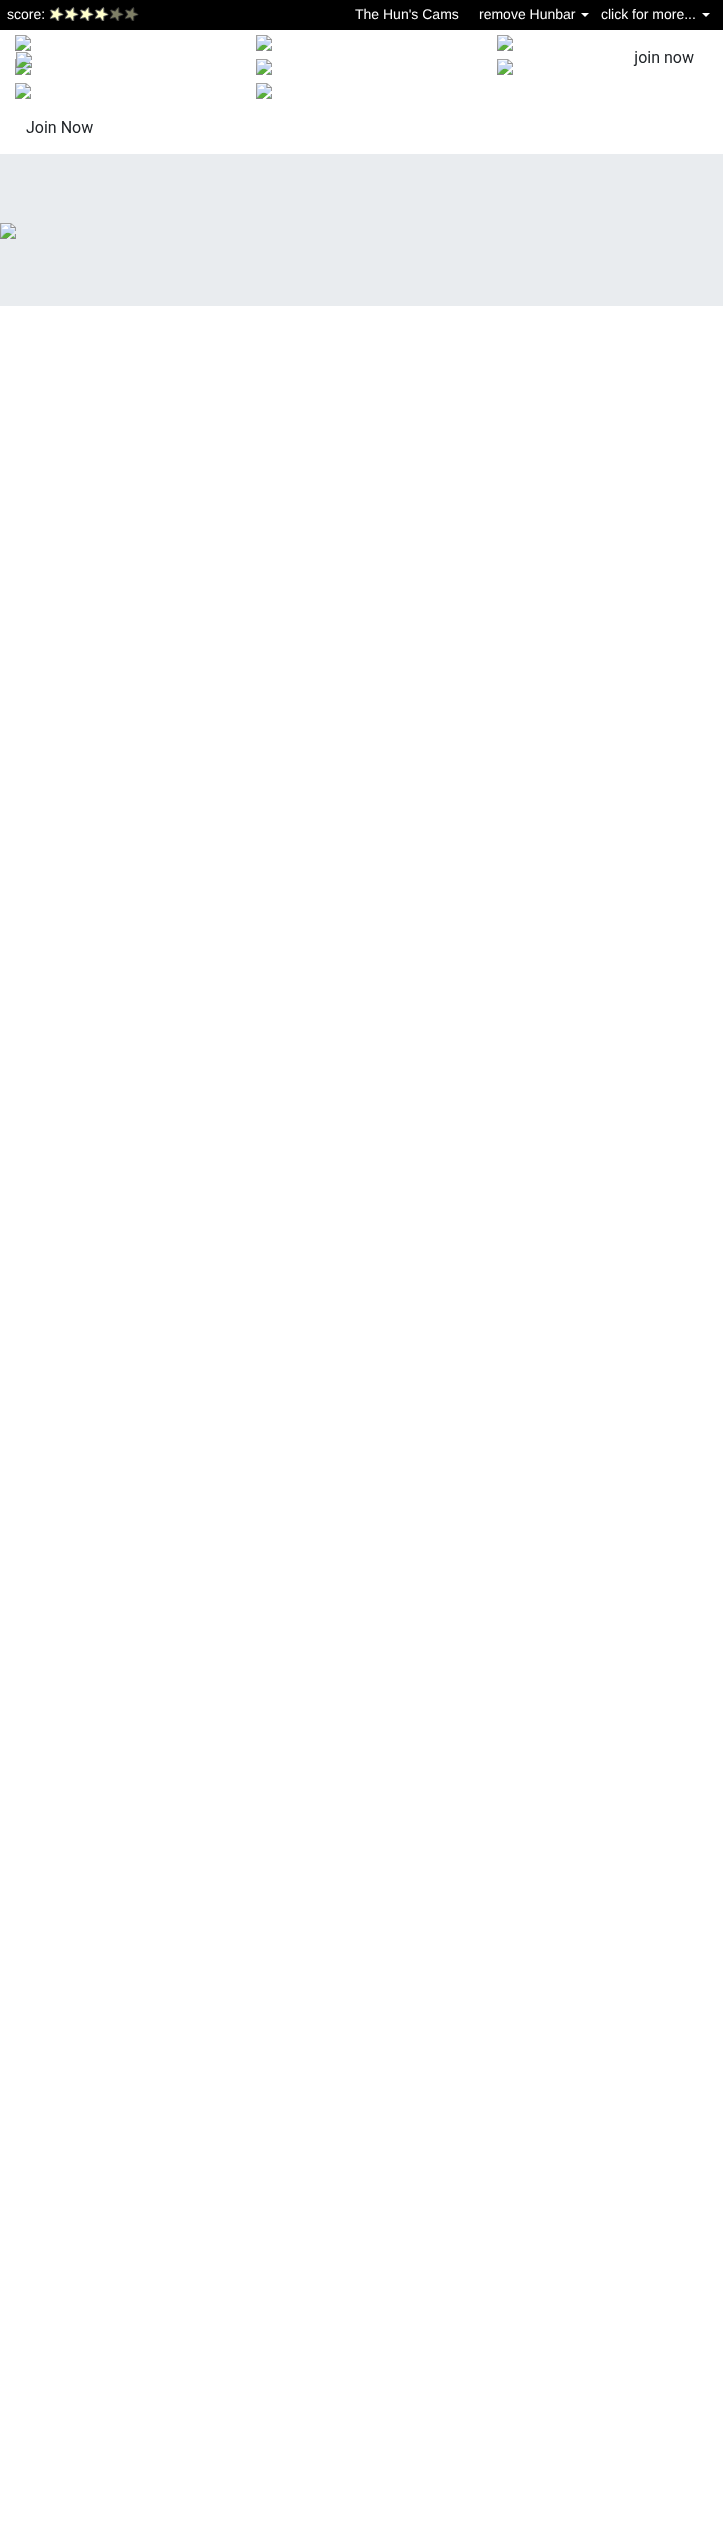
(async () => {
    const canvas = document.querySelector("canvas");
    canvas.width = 723;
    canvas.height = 2539;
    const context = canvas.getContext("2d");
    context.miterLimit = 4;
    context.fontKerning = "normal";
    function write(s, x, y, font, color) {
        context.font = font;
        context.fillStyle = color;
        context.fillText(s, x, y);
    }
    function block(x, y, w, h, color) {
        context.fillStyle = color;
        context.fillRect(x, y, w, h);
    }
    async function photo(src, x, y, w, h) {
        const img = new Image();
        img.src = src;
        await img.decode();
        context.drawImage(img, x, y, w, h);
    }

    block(0, 0, 723, 2539, "rgb(255, 255, 255)");
    block(0, 0, 723, 30, "rgb(0, 0, 0)");
    write("score:", 7, 19, "14px Liberation Sans", "rgb(255, 255, 255)");
    await photo("media/1.png", 49, 7, 90, 14);
    block(109, 7, 30, 14, "rgba(0, 0, 0, 0.5)");
    write("The Hun's Cams", 355, 19, "14px Liberation Sans", "rgb(255, 255, 255)");
    write("remove Hunbar", 479, 19, "14px Liberation Sans", "rgb(255, 255, 255)");
    context.beginPath();
    context.moveTo(581, 13);
    context.lineTo(589, 13);
    context.lineTo(585, 17);
    context.closePath();
    context.fill();
    write("click for more...", 601, 19, "14px Liberation Sans", "rgb(255, 255, 255)");
    context.beginPath();
    context.moveTo(702, 13);
    context.lineTo(710, 13);
    context.lineTo(706, 17);
    context.closePath();
    context.fill();
    await photo("media/2.png", 0, 35, 723, 271);
})();
